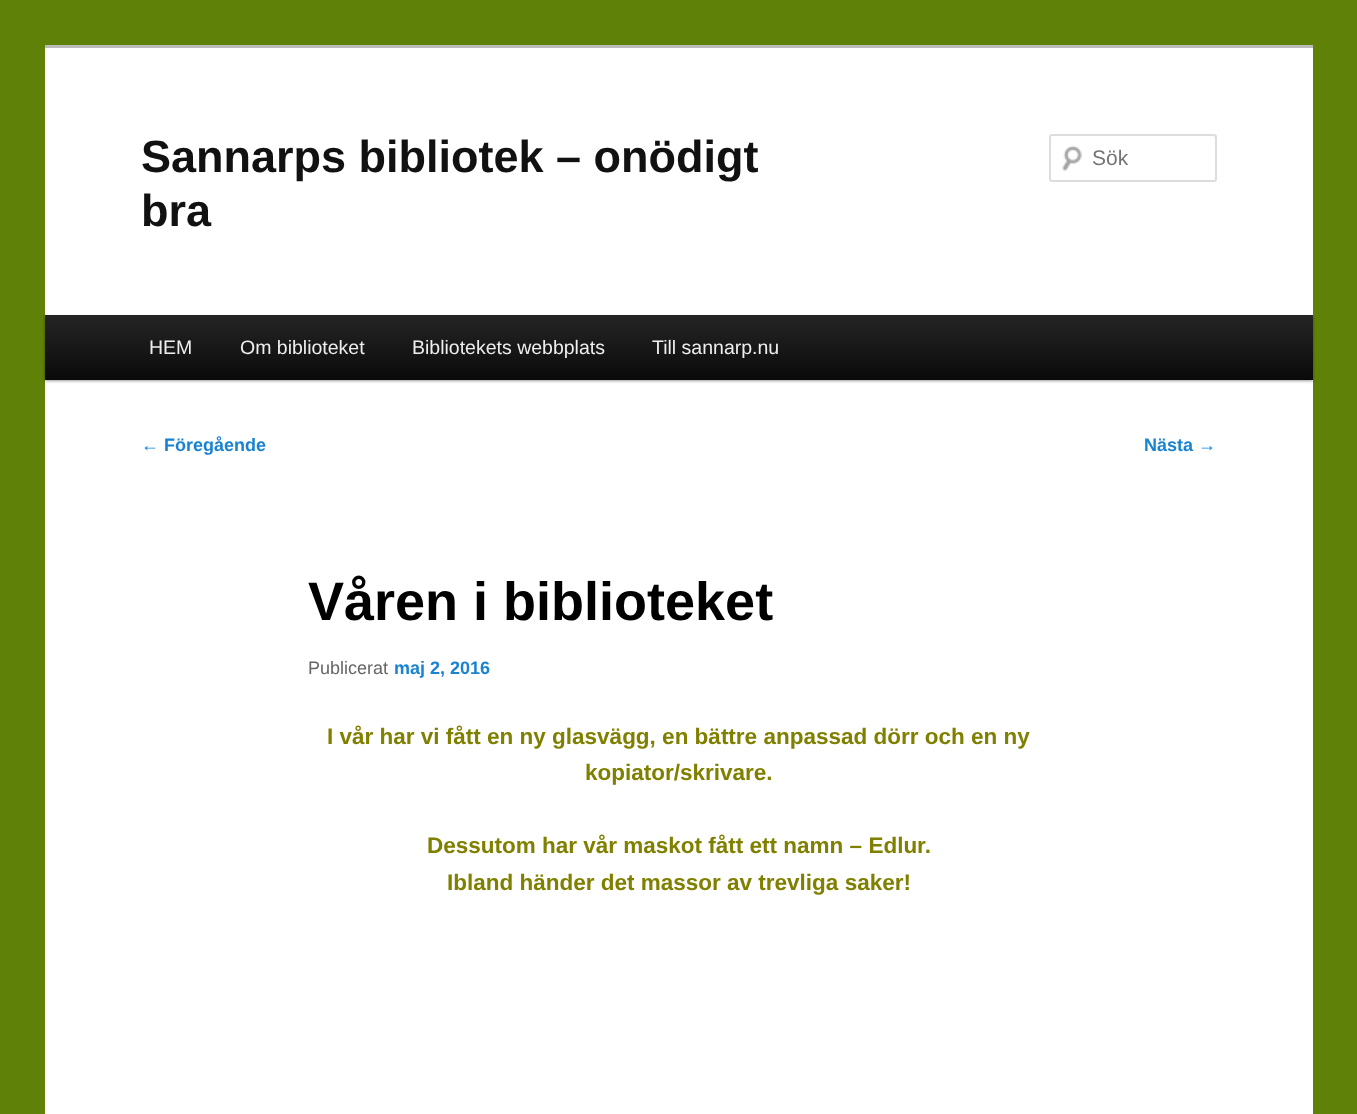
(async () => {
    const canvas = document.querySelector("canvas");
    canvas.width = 1357;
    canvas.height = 1114;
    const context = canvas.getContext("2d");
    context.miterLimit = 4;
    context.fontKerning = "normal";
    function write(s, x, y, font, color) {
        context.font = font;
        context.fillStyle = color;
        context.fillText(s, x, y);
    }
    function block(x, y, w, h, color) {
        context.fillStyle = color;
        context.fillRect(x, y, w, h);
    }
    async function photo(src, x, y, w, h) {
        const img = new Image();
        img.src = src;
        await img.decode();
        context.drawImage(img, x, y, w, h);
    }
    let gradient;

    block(0, 0, 1357, 1114, "rgb(95, 129, 8)");
    block(45, 48, 1268, 1066, "rgb(255, 255, 255)");
    block(45, 45, 1268, 3, "rgb(187, 187, 187)");
    write("Sannarps bibliotek – onödigt", 141, 172, "bold 45px Liberation Sans", "rgb(17, 17, 17)");
    write("bra", 141, 226, "bold 45px Liberation Sans", "rgb(17, 17, 17)");
    await photo("media/1.png", 1062, 145, 20, 27);
    context.fillStyle = "rgb(230, 230, 230)";
    context.beginPath();
    context.moveTo(1052, 136);
    context.lineTo(1214, 136);
    context.lineTo(1215, 138);
    context.lineTo(1215, 136);
    context.bezierCurveTo(1215, 136, 1214, 135, 1214, 135);
    context.lineTo(1052, 135);
    context.bezierCurveTo(1051, 135, 1050, 136, 1050, 136);
    context.lineTo(1050, 138);
    context.bezierCurveTo(1050, 137, 1051, 136, 1052, 136);
    context.closePath();
    context.fill();
    context.beginPath();
    context.roundRect(1050, 135, 166, 46, 2);
    context.strokeStyle = "rgb(221, 221, 221)";
    context.lineWidth = 2;
    context.stroke();
    write("Sök", 1092, 165, "21px Liberation Sans", "rgb(117, 117, 117)");
    context.fillStyle = "rgba(0, 0, 0, 0.4)";
    context.filter = "blur(1.5px)";
    context.beginPath();
    context.rect(45, 317, 1268, 64);
    context.fill();
    context.filter = "none";
    gradient = context.createLinearGradient(679, 315, 679, 380);
    gradient.addColorStop(0, "rgb(37, 37, 37)");
    gradient.addColorStop(1, "rgb(10, 10, 10)");
    context.fillStyle = gradient;
    context.fillRect(45, 315, 1268, 65);
    write("HEM", 149, 354, "19.5px Liberation Sans", "rgb(238, 238, 238)");
    write("Om biblioteket", 240, 354, "19.5px Liberation Sans", "rgb(238, 238, 238)");
    write("Bibliotekets webbplats", 412, 354, "19.5px Liberation Sans", "rgb(238, 238, 238)");
    write("Till sannarp.nu", 652, 354, "19.5px Liberation Sans", "rgb(238, 238, 238)");
    write("←", 141, 451, "18px Liberation Sans", "rgb(25, 130, 209)");
    write("Föregående", 164, 451, "bold 18px Liberation Sans", "rgb(25, 130, 209)");
    write("Nästa", 1144, 451, "bold 18px Liberation Sans", "rgb(25, 130, 209)");
    write("→", 1198, 451, "18px Liberation Sans", "rgb(25, 130, 209)");
    write("Våren i biblioteket", 308, 620, "bold 54px Liberation Sans", "rgb(0, 0, 0)");
    write("Publicerat", 308, 674, "18px Liberation Sans", "rgb(102, 102, 102)");
    write("maj 2, 2016", 394, 674, "bold 18px Liberation Sans", "rgb(25, 130, 209)");
    write("I vår har vi fått en ny glasvägg, en bättre anpassad dörr och en ny", 327, 744, "bold 22.5px Liberation Sans", "rgb(128, 128, 0)");
    write("kopiator/skrivare.", 585, 780, "bold 22.5px Liberation Sans", "rgb(128, 128, 0)");
    write("Dessutom har vår maskot fått ett namn – Edlur.", 427, 853, "bold 22.5px Liberation Sans", "rgb(128, 128, 0)");
    write("Ibland händer det massor av trevliga saker!", 447, 890, "bold 22.5px Liberation Sans", "rgb(128, 128, 0)");
})();
